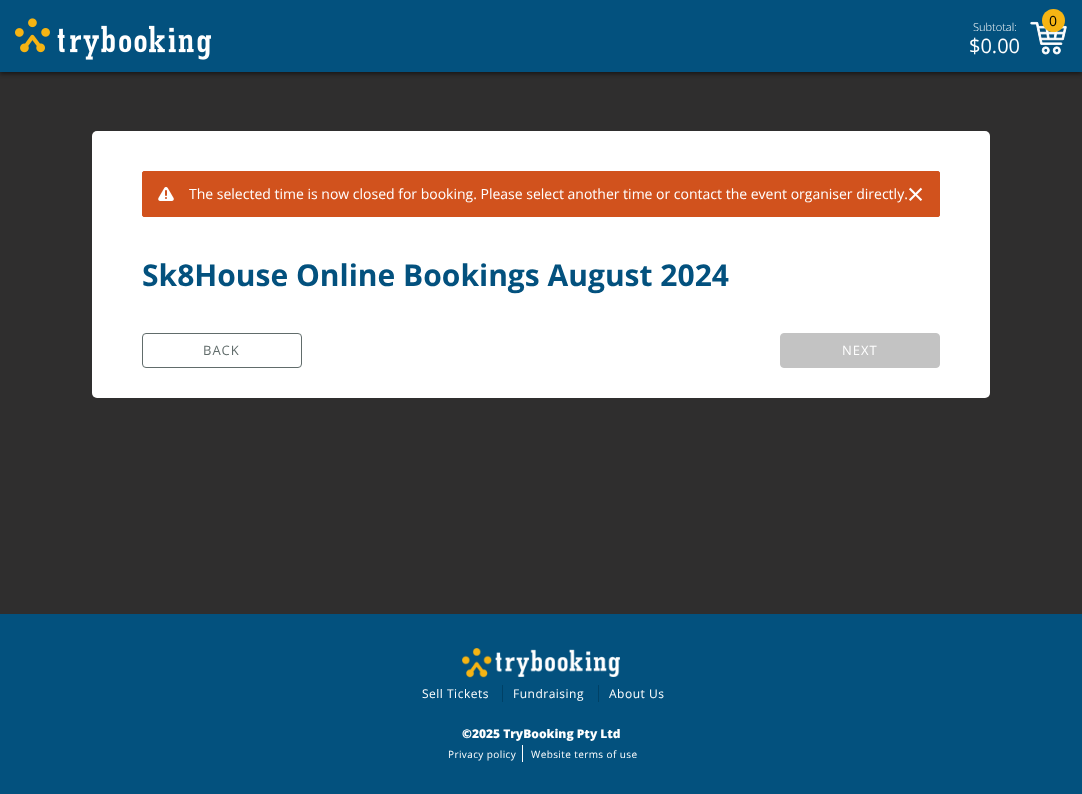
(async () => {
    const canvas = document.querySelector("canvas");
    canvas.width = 1082;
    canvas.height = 794;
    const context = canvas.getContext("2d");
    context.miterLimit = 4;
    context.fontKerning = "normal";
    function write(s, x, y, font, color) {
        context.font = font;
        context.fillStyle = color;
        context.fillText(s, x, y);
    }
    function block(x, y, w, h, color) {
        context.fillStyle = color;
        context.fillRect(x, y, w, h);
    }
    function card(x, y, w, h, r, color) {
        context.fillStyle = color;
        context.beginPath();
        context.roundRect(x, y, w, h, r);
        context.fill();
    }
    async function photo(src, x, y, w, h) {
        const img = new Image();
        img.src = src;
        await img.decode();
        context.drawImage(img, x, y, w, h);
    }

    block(0, 0, 1082, 794, "rgb(47, 46, 46)");
    context.fillStyle = "rgba(0, 0, 0, 0.5)";
    context.filter = "blur(2px)";
    context.beginPath();
    context.rect(0, 2, 1082, 72);
    context.fill();
    context.filter = "none";
    block(0, 0, 1082, 72, "rgb(3, 81, 126)");
    await photo("media/1.png", 15, 18, 196, 42);
    write("Subtotal:", 973, 31, "300 11px Open Sans", "rgb(255, 255, 255)");
    write("$0.00", 969, 53, "20px Open Sans", "rgb(255, 255, 255)");
    await photo("media/2.png", 1030, 21, 37, 34);
    context.fillStyle = "rgb(246, 180, 19)";
    context.beginPath();
    context.arc(1053.5, 20.5, 11.5, 0, Math.PI * 2);
    context.fill();
    write("0", 1049, 26, "14px Open Sans", "rgb(0, 0, 0)");
    card(92, 131, 898, 267, 5, "rgb(255, 255, 255)");
    context.fillStyle = "rgb(209, 82, 29)";
    context.beginPath();
    context.roundRect(142.5, 171.5, 797, 45, 1.5);
    context.fill();
    context.strokeStyle = "rgb(209, 82, 29)";
    context.stroke();
    await photo("media/3.png", 158, 187, 16, 14);
    write("The selected time is now closed for booking. Please select another time or contact the event organiser directly.", 189, 199, "14px Open Sans", "rgb(255, 255, 255)");
    write("×", 907, 205, "30px Open Sans", "rgb(255, 255, 255)");
    write("Sk8House Online Bookings August 2024", 142, 286, "bold 30px Open Sans", "rgb(3, 81, 126)");
    context.beginPath();
    context.roundRect(142.5, 333.5, 159, 34, 3.5);
    context.strokeStyle = "rgb(97, 108, 107)";
    context.stroke();
    context.letterSpacing = "1px";
    write("BACK", 203, 355, "13px Open Sans", "rgb(97, 108, 107)");
    context.fillStyle = "rgb(195, 195, 195)";
    context.beginPath();
    context.roundRect(780.5, 333.5, 159, 34, 3.5);
    context.fill();
    context.strokeStyle = "rgb(195, 195, 195)";
    context.stroke();
    write("NEXT", 842, 355, "13px Open Sans", "rgb(255, 255, 255)");
    block(0, 614, 1082, 180, "rgb(3, 81, 126)");
    await photo("media/4.png", 462, 648, 30, 30);
    await photo("media/5.png", 495, 649, 125, 28);
    context.letterSpacing = "0.5px";
    write("Sell Tickets", 422, 698, "12px Open Sans", "rgb(255, 255, 255)");
    block(502, 685, 1, 17, "rgb(0, 65, 102)");
    write("Fundraising", 513, 698, "12px Open Sans", "rgb(255, 255, 255)");
    block(598, 685, 1, 17, "rgb(0, 65, 102)");
    write("About Us", 609, 698, "12px Open Sans", "rgb(255, 255, 255)");
    context.letterSpacing = "0px";
    write("©2025 TryBooking Pty Ltd", 462, 738, "800 12px Open Sans", "rgb(255, 255, 255)");
    context.letterSpacing = "0.4px";
    write("Privacy policy", 448, 758, "10px Open Sans", "rgb(255, 255, 255)");
    block(522, 745, 1, 17, "rgb(255, 255, 255)");
    write("Website terms of use", 531, 758, "10px Open Sans", "rgb(255, 255, 255)");
})();
